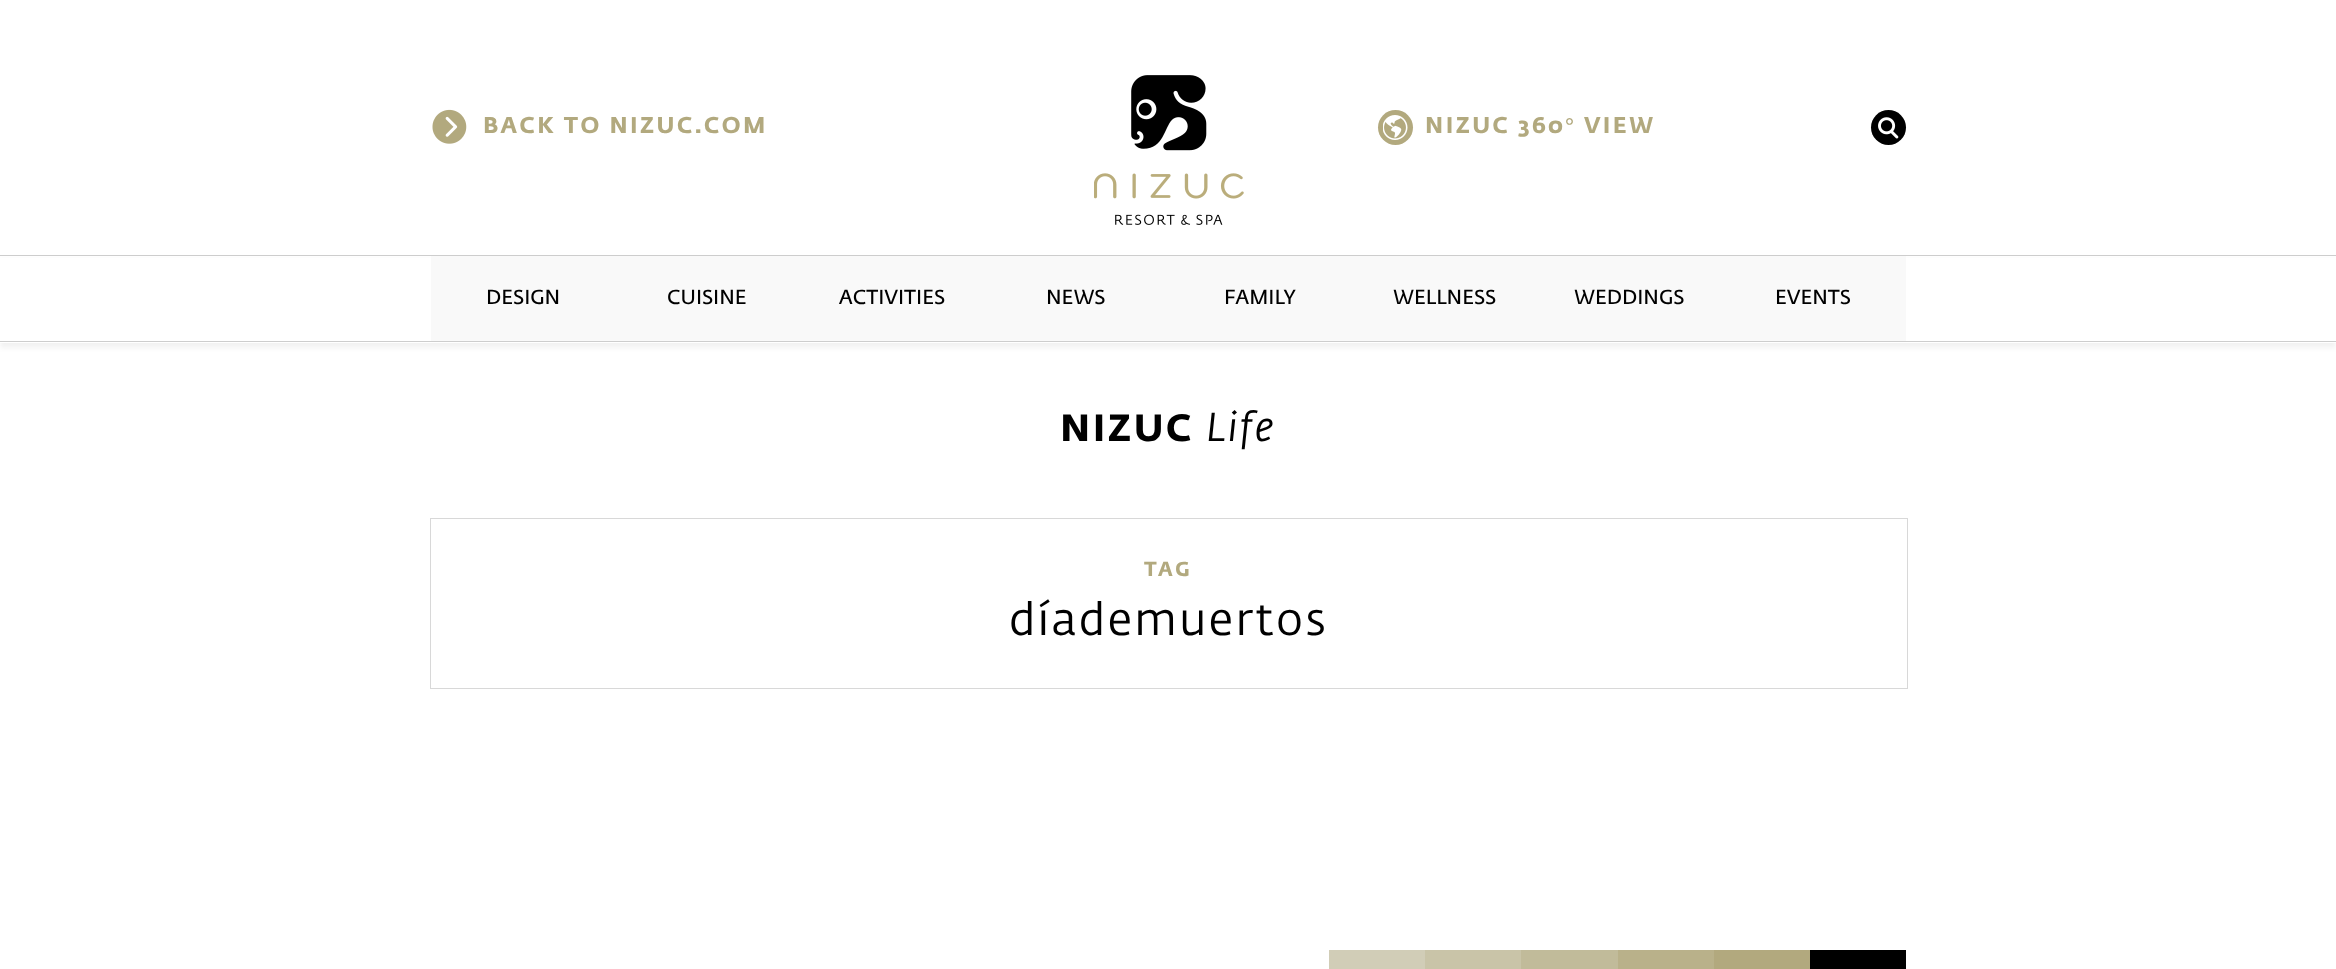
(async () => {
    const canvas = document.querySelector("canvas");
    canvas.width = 2336;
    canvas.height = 969;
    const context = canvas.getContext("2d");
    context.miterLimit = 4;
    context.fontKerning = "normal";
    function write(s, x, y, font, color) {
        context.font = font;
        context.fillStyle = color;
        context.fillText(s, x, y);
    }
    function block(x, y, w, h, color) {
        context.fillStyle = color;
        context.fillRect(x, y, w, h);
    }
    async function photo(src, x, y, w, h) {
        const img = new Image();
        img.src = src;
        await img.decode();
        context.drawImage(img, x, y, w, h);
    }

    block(0, 0, 2336, 969, "rgb(255, 255, 255)");
    await photo("media/1.png", 432, 109, 35, 35);
    context.letterSpacing = "2.5px";
    write("BACK TO NIZUC.COM", 483, 133, "bold 22.5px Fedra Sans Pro", "rgb(178, 169, 126)");
    await photo("media/2.png", 1094, 75, 150, 150);
    context.beginPath();
    context.arc(1395.5, 127.5, 17.5, 0, Math.PI * 2);
    context.fill();
    await photo("media/3.png", 1383, 115, 25, 25);
    write("NIZUC 360", 1425, 133, "bold 22.5px Fedra Sans Pro", "rgb(178, 169, 126)");
    write("°", 1565, 133, "bold 22.5px Liberation Serif", "rgb(178, 169, 126)");
    write("VIEW", 1584, 133, "bold 22.5px Fedra Sans Pro", "rgb(178, 169, 126)");
    context.fillStyle = "rgb(0, 0, 0)";
    context.beginPath();
    context.arc(1888.5, 127.5, 17.5, 0, Math.PI * 2);
    context.fill();
    await photo("media/4.png", 1878, 117, 21, 22);
    context.fillStyle = "rgba(0, 0, 0, 0.05)";
    context.filter = "blur(2.5px)";
    context.beginPath();
    context.rect(0, 260, 2336, 88);
    context.fill();
    context.filter = "none";
    block(0, 258, 2336, 85, "rgb(255, 255, 255)");
    block(0, 255, 2336, 1, "rgb(205, 205, 205)");
    block(0, 341, 2336, 1, "rgb(205, 205, 205)");
    block(431, 256, 1475, 85, "rgb(249, 249, 249)");
    context.letterSpacing = "0px";
    write("DESIGN", 486, 304, "20px Fedra Sans Pro", "rgb(0, 0, 0)");
    write("CUISINE", 667, 304, "20px Fedra Sans Pro", "rgb(0, 0, 0)");
    write("ACTIVITIES", 839, 304, "20px Fedra Sans Pro", "rgb(0, 0, 0)");
    write("NEWS", 1046, 304, "20px Fedra Sans Pro", "rgb(0, 0, 0)");
    write("FAMILY", 1224, 304, "20px Fedra Sans Pro", "rgb(0, 0, 0)");
    write("WELLNESS", 1393, 304, "20px Fedra Sans Pro", "rgb(0, 0, 0)");
    write("WEDDINGS", 1574, 304, "20px Fedra Sans Pro", "rgb(0, 0, 0)");
    write("EVENTS", 1775, 304, "20px Fedra Sans Pro", "rgb(0, 0, 0)");
    context.letterSpacing = "2.5px";
    write("NIZUC", 1060, 441, "bold 37.5px Fedra Sans Pro", "rgb(0, 0, 0)");
    write("Life", 1206, 441, "italic 40px Fedra Sans Pro", "rgb(0, 0, 0)");
    context.strokeStyle = "rgb(216, 216, 216)";
    context.strokeRect(430.5, 518.5, 1477, 170);
    write("TAG", 1144, 576, "bold 20px Fedra Sans Pro", "rgb(178, 169, 126)");
    write("díademuertos", 1009, 635, "45px 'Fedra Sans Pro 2'", "rgb(0, 0, 0)");
    block(1329, 950, 96, 19, "rgb(209, 205, 183)");
    block(1425, 950, 96, 19, "rgb(201, 196, 168)");
    block(1521, 950, 97, 19, "rgb(193, 187, 154)");
    block(1618, 950, 96, 19, "rgb(185, 177, 138)");
    block(1714, 950, 96, 19, "rgb(178, 169, 126)");
    block(1810, 950, 96, 19, "rgb(0, 0, 0)");
})();
